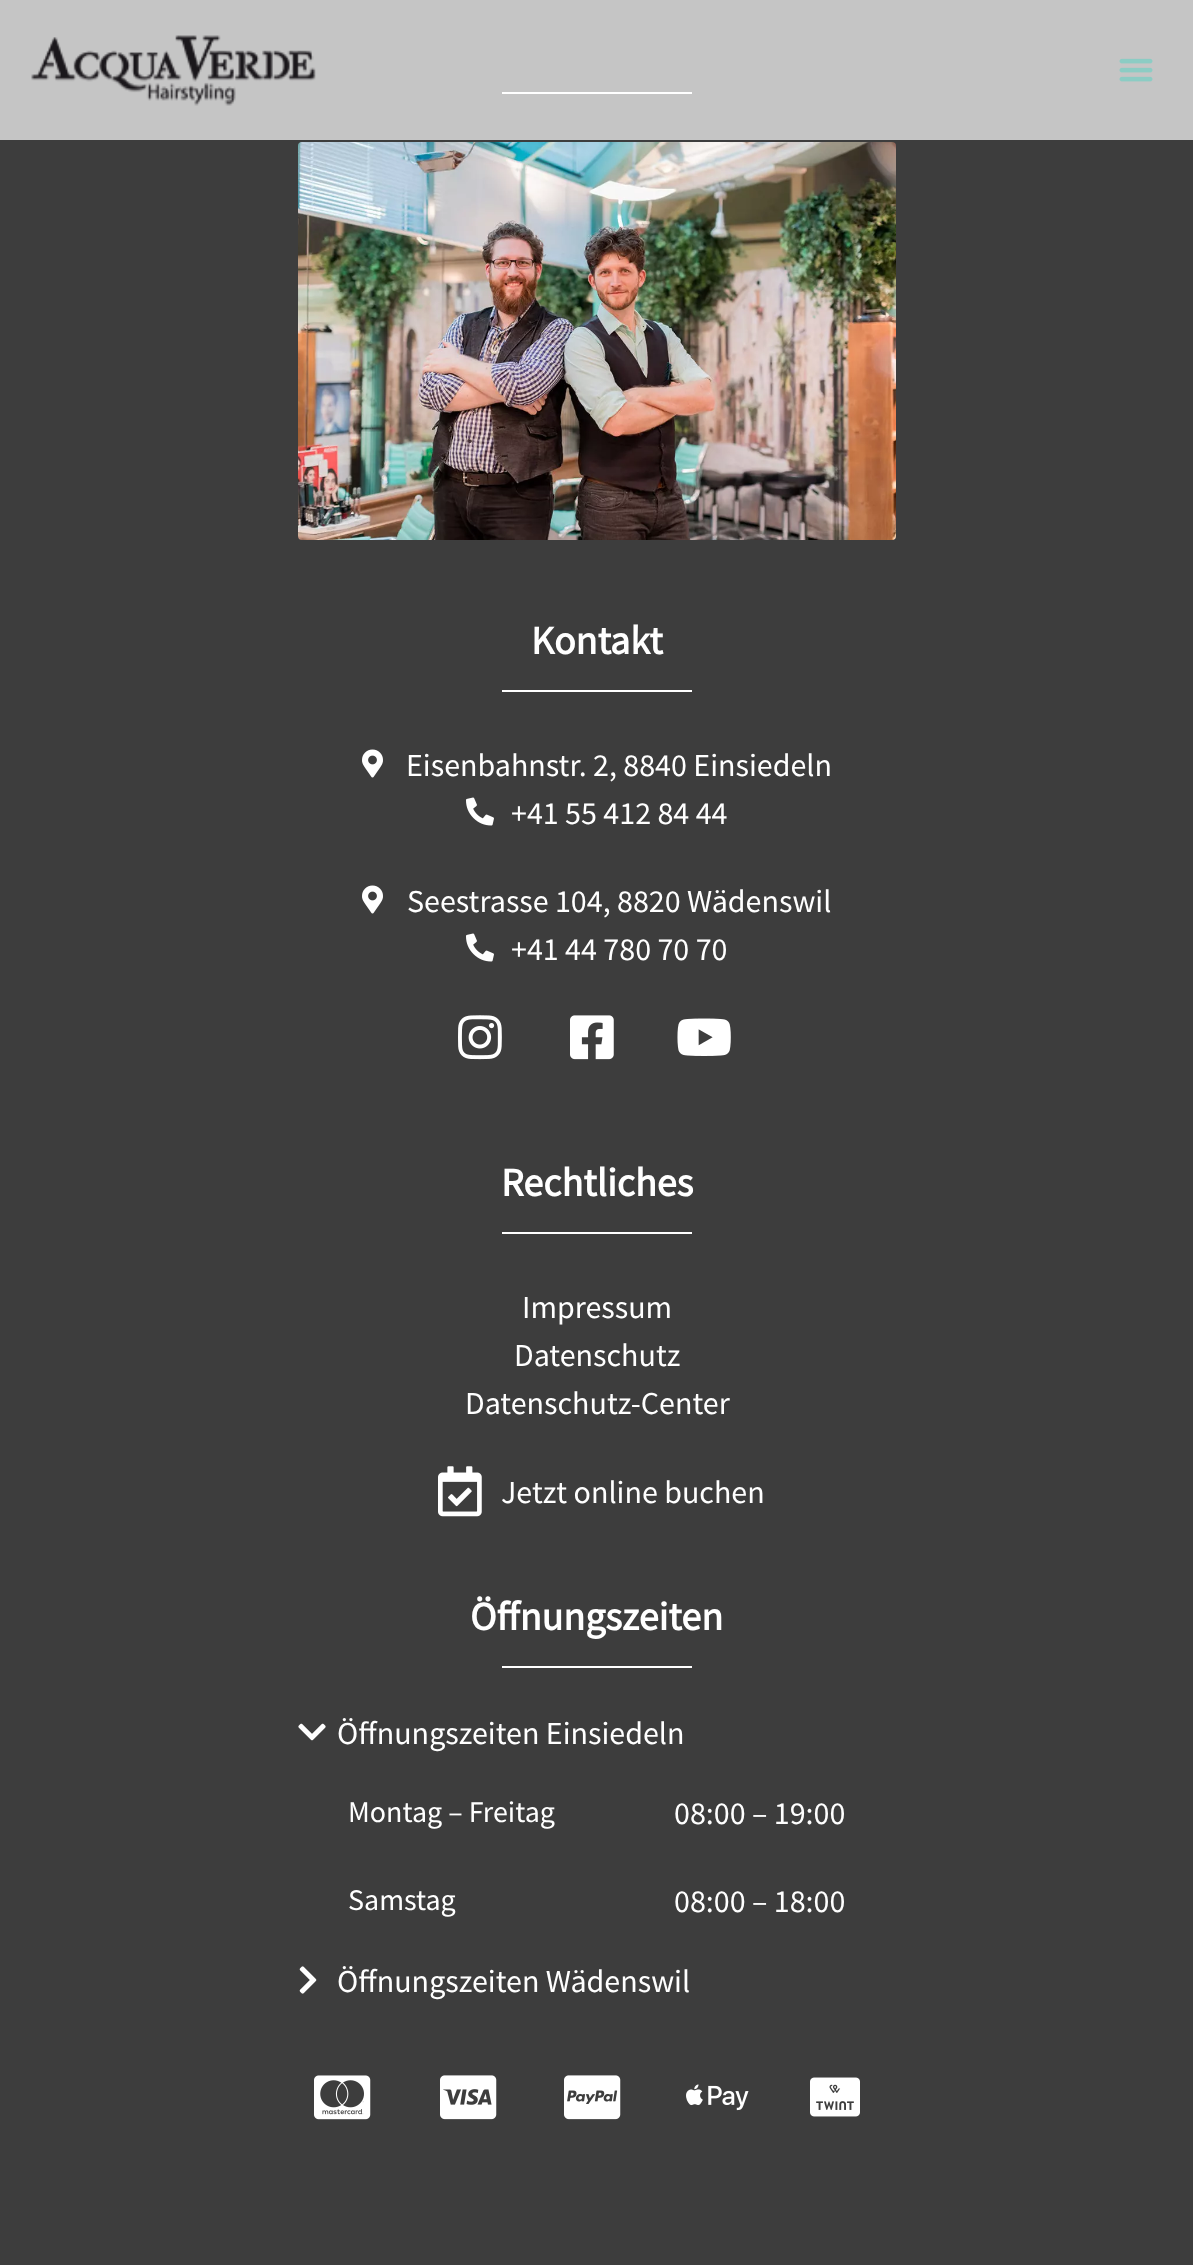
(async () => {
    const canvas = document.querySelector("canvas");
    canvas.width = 1193;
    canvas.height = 2265;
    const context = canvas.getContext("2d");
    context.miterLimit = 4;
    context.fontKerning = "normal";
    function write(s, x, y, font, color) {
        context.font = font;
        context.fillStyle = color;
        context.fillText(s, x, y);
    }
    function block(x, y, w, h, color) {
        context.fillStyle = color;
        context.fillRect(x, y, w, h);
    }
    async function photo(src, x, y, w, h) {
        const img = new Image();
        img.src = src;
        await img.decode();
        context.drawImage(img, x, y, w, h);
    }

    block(0, 0, 1193, 2265, "rgb(61, 61, 61)");
    block(502, 92, 190, 2, "rgb(255, 255, 255)");
    block(0, 0, 1193, 140, "rgba(255, 255, 255, 0.7)");
    await photo("media/1.png", 31, 35, 285, 71);
    await photo("media/2.png", 1119, 58, 34, 24);
    await photo("media/3.png", 298, 142, 598, 398);
    write("Kontakt", 531, 654, "bold 40px Source Sans Pro", "rgb(255, 255, 255)");
    block(502, 690, 190, 2, "rgb(255, 255, 255)");
    await photo("media/4.png", 362, 749, 21, 29);
    write("Eisenbahnstr. 2, 8840 Einsiedeln", 406, 776, "32px Source Sans Pro", "rgb(255, 255, 255)");
    await photo("media/5.png", 466, 797, 28, 29);
    write("+41 55 412 84 44", 511, 824, "32px Source Sans Pro", "rgb(255, 255, 255)");
    await photo("media/4.png", 362, 885, 21, 29);
    write("Seestrasse 104, 8820 Wädenswil", 407, 912, "32px Source Sans Pro", "rgb(255, 255, 255)");
    await photo("media/5.png", 466, 933, 28, 29);
    write("+41 44 780 70 70", 511, 960, "32px Source Sans Pro", "rgb(255, 255, 255)");
    await photo("media/6.png", 458, 1015, 44, 45);
    await photo("media/7.png", 570, 1015, 44, 45);
    await photo("media/8.png", 677, 1018, 54, 38);
    write("Rechtliches", 501, 1196, "bold 40px Source Sans Pro", "rgb(255, 255, 255)");
    block(502, 1232, 190, 2, "rgb(255, 255, 255)");
    write("Impressum", 522, 1318, "32px Source Sans Pro", "rgb(255, 255, 255)");
    write("Datenschutz", 514, 1366, "32px Source Sans Pro", "rgb(255, 255, 255)");
    write("Datenschutz-Center", 465, 1414, "32px Source Sans Pro", "rgb(255, 255, 255)");
    await photo("media/9.png", 438, 1466, 44, 51);
    write("Jetzt online buchen", 501, 1503, "32px Source Sans Pro", "rgb(255, 255, 255)");
    write("Öffnungszeiten", 470, 1630, "bold 40px Source Sans Pro", "rgb(255, 255, 255)");
    block(502, 1666, 190, 2, "rgb(255, 255, 255)");
    await photo("media/10.png", 298, 1723, 28, 18);
    write("Öffnungszeiten Einsiedeln", 337, 1744, "32px Source Sans Pro", "rgb(255, 255, 255)");
    write("Montag – Freitag", 348, 1822, "30px Source Sans Pro", "rgb(255, 255, 255)");
    write("08:00 – 19:00", 674, 1824, "32px Source Sans Pro", "rgb(255, 255, 255)");
    write("Samstag", 348, 1910, "30px Source Sans Pro", "rgb(255, 255, 255)");
    write("08:00 – 18:00", 674, 1912, "32px Source Sans Pro", "rgb(255, 255, 255)");
    await photo("media/11.png", 299, 1966, 18, 28);
    write("Öffnungszeiten Wädenswil", 337, 1992, "32px Source Sans Pro", "rgb(255, 255, 255)");
    await photo("media/12.png", 314, 2075, 57, 45);
    await photo("media/13.png", 440, 2075, 57, 45);
    await photo("media/14.png", 564, 2075, 57, 45);
    await photo("media/15.png", 686, 2084, 63, 27);
    await photo("media/16.png", 810, 2077, 50, 40);
})();
